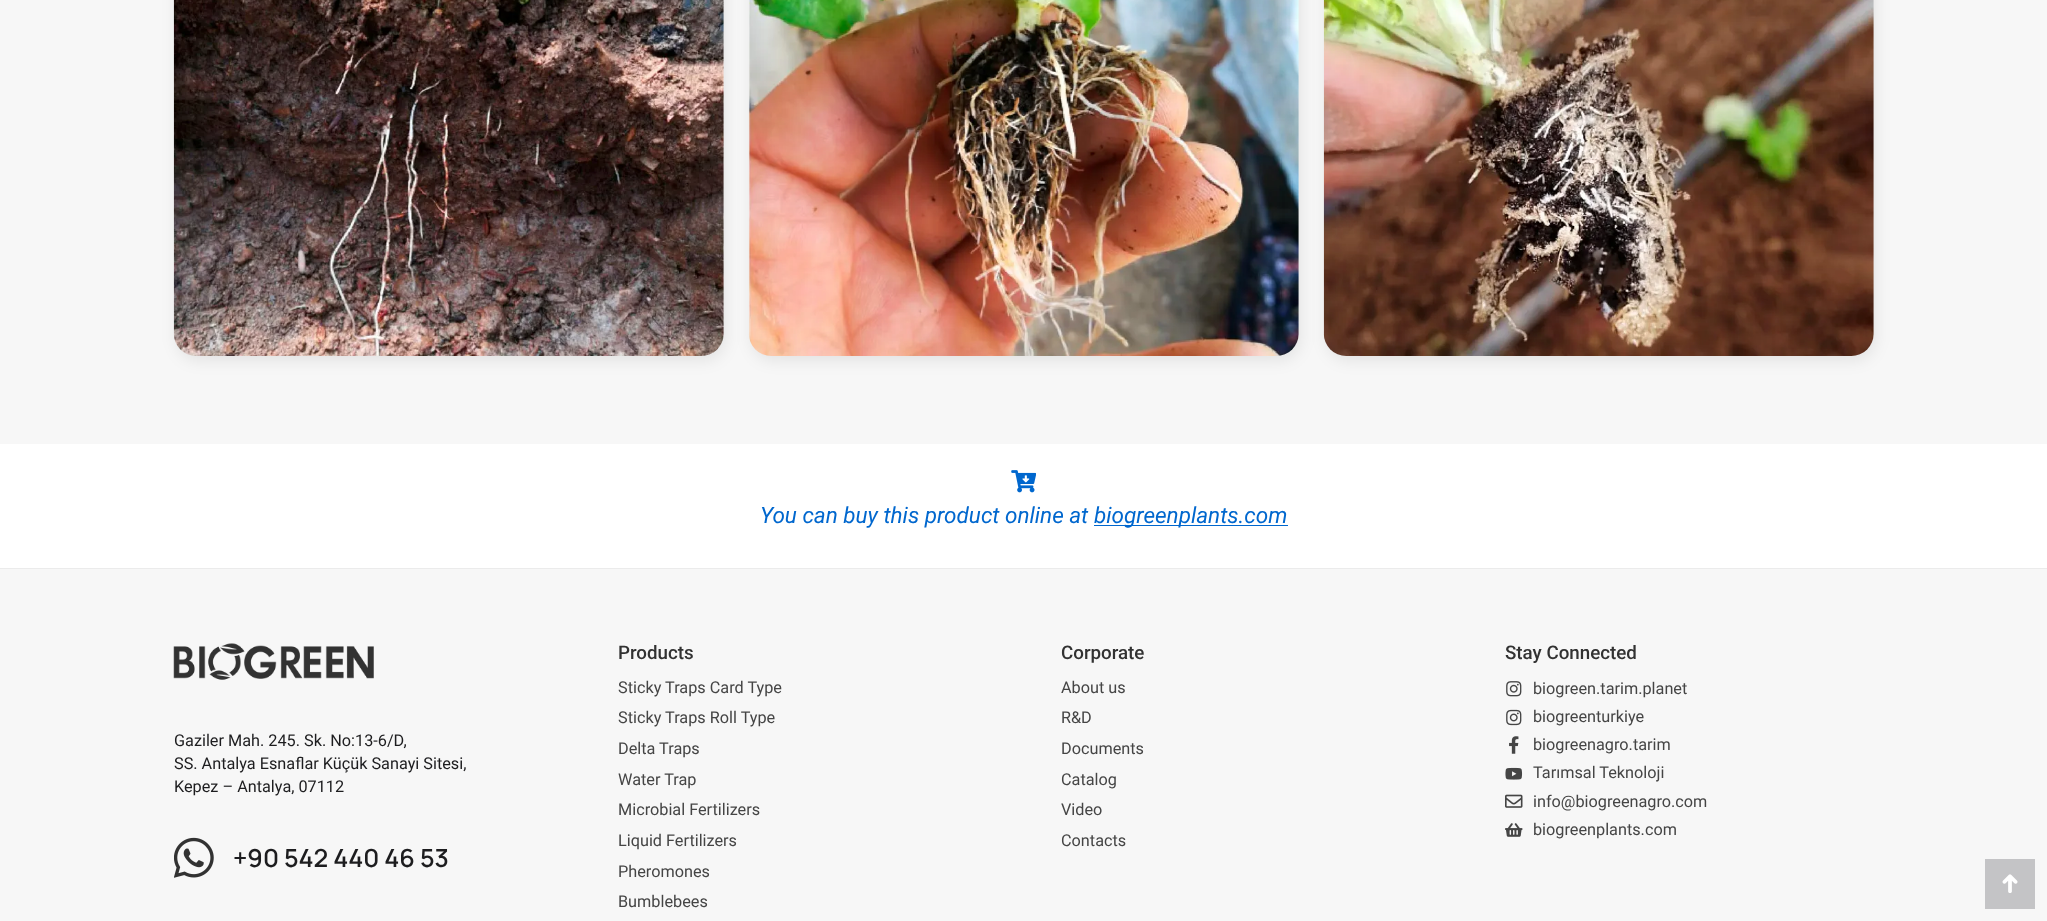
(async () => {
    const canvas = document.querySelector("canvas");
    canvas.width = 2047;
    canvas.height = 921;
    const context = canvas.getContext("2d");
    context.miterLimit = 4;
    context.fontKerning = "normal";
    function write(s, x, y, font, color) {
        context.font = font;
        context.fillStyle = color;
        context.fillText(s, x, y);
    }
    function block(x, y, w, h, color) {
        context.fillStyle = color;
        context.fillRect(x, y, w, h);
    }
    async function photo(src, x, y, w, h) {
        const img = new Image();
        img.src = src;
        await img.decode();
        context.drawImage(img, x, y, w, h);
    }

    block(0, 0, 2047, 921, "rgb(247, 247, 247)");
    context.fillStyle = "rgba(0, 0, 0, 0.08)";
    context.filter = "blur(7.5px)";
    context.beginPath();
    context.roundRect(176, -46, 550, 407, 23);
    context.fill();
    context.filter = "none";
    await photo("media/1.png", 173, 0, 551, 356);
    context.filter = "blur(7.5px)";
    context.beginPath();
    context.roundRect(751, -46, 550, 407, 23);
    context.fill();
    context.filter = "none";
    await photo("media/2.png", 748, 0, 551, 356);
    context.filter = "blur(7.5px)";
    context.beginPath();
    context.roundRect(1326, -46, 550, 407, 23);
    context.fill();
    context.filter = "none";
    await photo("media/3.png", 1323, 0, 551, 356);
    block(0, 444, 2047, 124, "rgb(255, 255, 255)");
    await photo("media/4.png", 1011, 470, 25, 23);
    write("You can buy this product online at", 760, 523, "italic 22.5px Roboto", "rgb(0, 103, 206)");
    block(1094, 525, 194, 1, "rgb(0, 103, 206)");
    write("biogreenplants.com", 1094, 523, "italic 22.5px Roboto", "rgb(0, 103, 206)");
    block(0, 568, 2047, 1, "rgb(235, 235, 235)");
    await photo("media/5.png", 173, 643, 201, 37);
    write("Gaziler Mah. 245. Sk. No:13-6/D,", 174, 746, "16.25px Roboto", "rgb(29, 29, 31)");
    write("SS. Antalya Esnaflar Küçük Sanayi Sitesi,", 174, 769, "16.25px Roboto", "rgb(29, 29, 31)");
    write("Kepez – Antalya, 07112", 174, 792, "16.25px Roboto", "rgb(29, 29, 31)");
    await photo("media/6.png", 174, 837, 40, 41);
    write("+90 542 440 46 53", 233, 867, "600 25px Manrope", "rgb(29, 29, 31)");
    write("Products", 618, 659, "500 18.75px Roboto", "rgb(50, 50, 50)");
    write("Sticky Traps Card Type", 618, 693, "16.25px Roboto", "rgb(69, 69, 69)");
    write("Sticky Traps Roll Type", 618, 723, "16.25px Roboto", "rgb(69, 69, 69)");
    write("Delta Traps", 618, 754, "16.25px Roboto", "rgb(69, 69, 69)");
    write("Water Trap", 618, 785, "16.25px Roboto", "rgb(69, 69, 69)");
    write("Microbial Fertilizers", 618, 815, "16.25px Roboto", "rgb(69, 69, 69)");
    write("Liquid Fertilizers", 618, 846, "16.25px Roboto", "rgb(69, 69, 69)");
    write("Pheromones", 618, 877, "16.25px Roboto", "rgb(69, 69, 69)");
    write("Bumblebees", 618, 907, "16.25px Roboto", "rgb(69, 69, 69)");
    write("Corporate", 1061, 659, "500 18.75px Roboto", "rgb(50, 50, 50)");
    write("About us", 1061, 693, "16.25px Roboto", "rgb(69, 69, 69)");
    write("R&D", 1061, 723, "16.25px Roboto", "rgb(69, 69, 69)");
    write("Documents", 1061, 754, "16.25px Roboto", "rgb(69, 69, 69)");
    write("Catalog", 1061, 785, "16.25px Roboto", "rgb(69, 69, 69)");
    write("Video", 1061, 815, "16.25px Roboto", "rgb(69, 69, 69)");
    write("Contacts", 1061, 846, "16.25px Roboto", "rgb(69, 69, 69)");
    write("Stay Connected", 1505, 659, "500 18.75px Roboto", "rgb(50, 50, 50)");
    await photo("media/7.png", 1506, 681, 16, 16);
    write("biogreen.tarim.planet", 1533, 694, "16.25px Roboto", "rgb(69, 69, 69)");
    await photo("media/8.png", 1506, 709, 16, 17);
    write("biogreenturkiye", 1533, 722, "16.25px Roboto", "rgb(69, 69, 69)");
    await photo("media/9.png", 1509, 736, 10, 18);
    write("biogreenagro.tarim", 1533, 750, "16.25px Roboto", "rgb(69, 69, 69)");
    await photo("media/10.png", 1505, 767, 18, 13);
    write("Tarımsal Teknoloji", 1533, 778, "16.25px Roboto", "rgb(69, 69, 69)");
    await photo("media/11.png", 1505, 794, 18, 14);
    write("info@biogreenagro.com", 1533, 807, "16.25px Roboto", "rgb(69, 69, 69)");
    await photo("media/12.png", 1505, 823, 18, 14);
    write("biogreenplants.com", 1533, 835, "16.25px Roboto", "rgb(69, 69, 69)");
    block(1985, 859, 50, 50, "rgb(196, 196, 198)");
    await photo("media/13.png", 2002, 874, 16, 19);
})();
